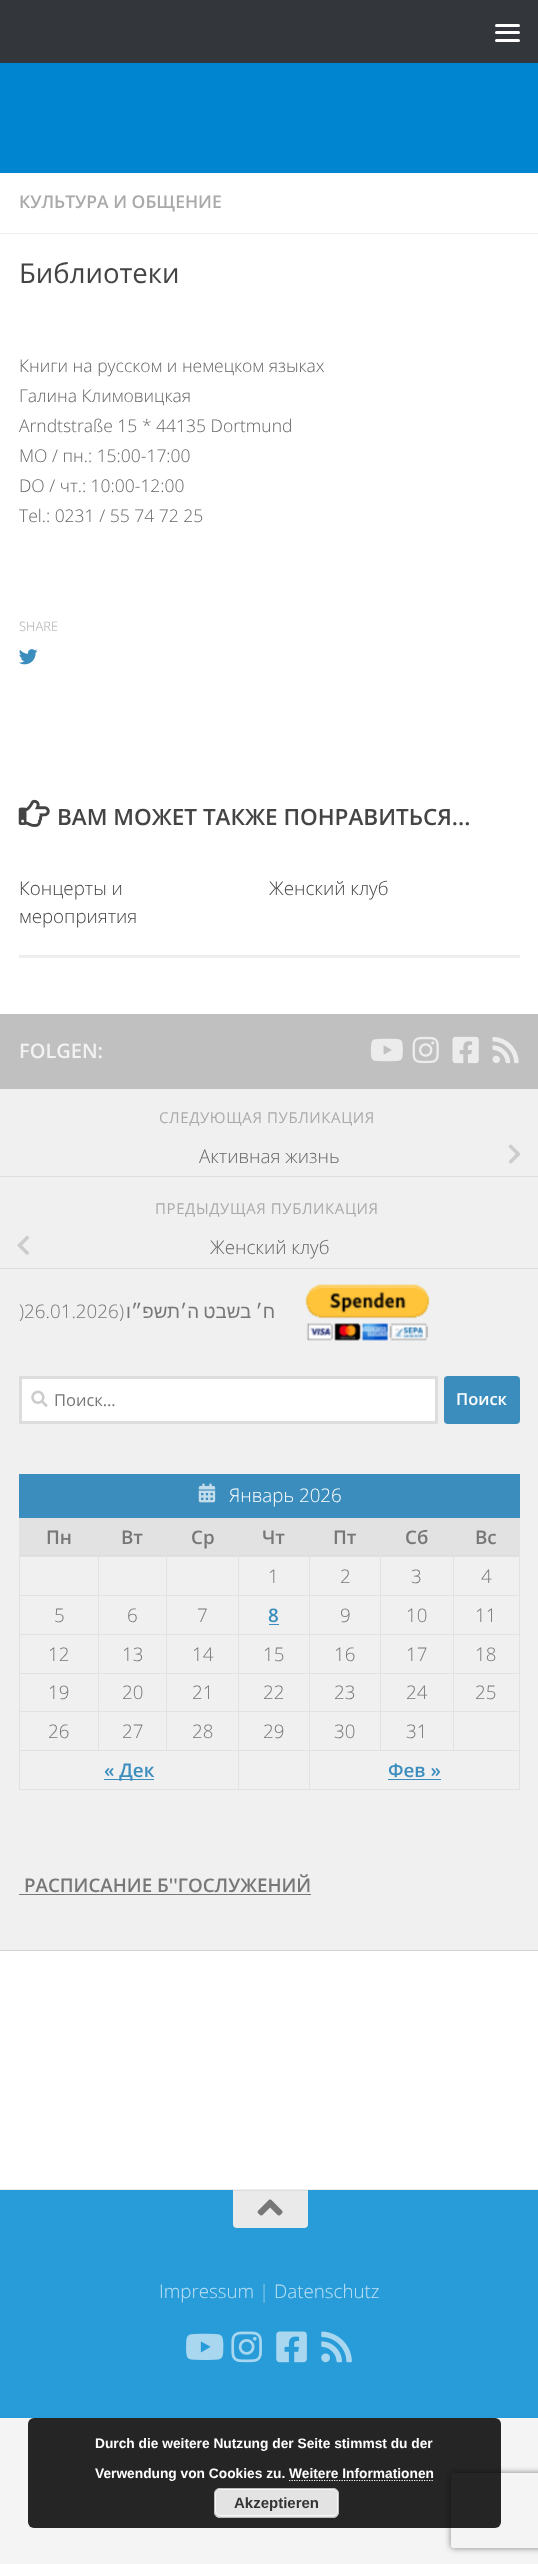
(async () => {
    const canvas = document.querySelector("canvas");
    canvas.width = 538;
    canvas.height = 2564;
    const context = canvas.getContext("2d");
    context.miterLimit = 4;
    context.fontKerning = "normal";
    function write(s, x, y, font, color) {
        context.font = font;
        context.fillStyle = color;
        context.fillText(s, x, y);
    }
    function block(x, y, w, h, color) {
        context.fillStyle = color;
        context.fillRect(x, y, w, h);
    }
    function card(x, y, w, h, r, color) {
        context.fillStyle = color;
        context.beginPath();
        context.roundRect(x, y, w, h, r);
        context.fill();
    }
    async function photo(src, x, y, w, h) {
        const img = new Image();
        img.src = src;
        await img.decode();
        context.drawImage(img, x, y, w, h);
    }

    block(0, 0, 538, 2564, "rgb(244, 244, 244)");
    block(0, 1950, 538, 1, "rgb(234, 234, 234)");
    context.fillStyle = "rgba(0, 0, 0, 0.1)";
    context.filter = "blur(0.5px)";
    context.beginPath();
    context.rect(0, 174, 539, 1777);
    context.fill();
    context.filter = "none";
    block(0, 63, 538, 110, "rgb(0, 134, 208)");
    block(0, 0, 538, 63, "rgb(51, 54, 59)");
    card(495, 24, 25, 3, 1.5, "rgb(255, 255, 255)");
    card(495, 31, 25, 3, 1.5, "rgb(255, 255, 255)");
    card(495, 39, 25, 3, 1.5, "rgb(255, 255, 255)");
    block(0, 173, 538, 841, "rgb(255, 255, 255)");
    block(0, 233, 538, 1, "rgb(238, 238, 238)");
    write("КУЛЬТУРА И ОБЩЕНИЕ", 19, 208, "600 17.5px Open Sans", "rgb(170, 170, 170)");
    write("Библиотеки", 19, 283, "27.5px Open Sans", "rgb(68, 68, 68)");
    write("Книги на русском и немецком языках", 19, 372, "300 17.5px Open Sans", "rgb(102, 102, 102)");
    write("Галина Климовицкая", 19, 402, "300 17.5px Open Sans", "rgb(102, 102, 102)");
    write("Arndtstraße 15 * 44135 Dortmund", 19, 432, "300 17.5px Open Sans", "rgb(102, 102, 102)");
    write("MO / пн.: 15:00-17:00", 19, 462, "300 17.5px Open Sans", "rgb(102, 102, 102)");
    write("DО / чт.: 10:00-12:00", 19, 492, "300 17.5px Open Sans", "rgb(102, 102, 102)");
    write("Tеl.: 0231 / 55 74 72 25", 19, 522, "300 17.5px Open Sans", "rgb(102, 102, 102)");
    write("SHARE", 19, 631, "300 13px Open Sans", "rgb(170, 170, 170)");
    await photo("media/1.png", 19, 649, 19, 16);
    await photo("media/2.png", 18, 799, 32, 28);
    write("ВАМ МОЖЕТ ТАКЖЕ ПОНРАВИТЬСЯ...", 57, 825, "600 22.5px Open Sans", "rgb(68, 68, 68)");
    block(19, 955, 501, 3, "rgb(238, 238, 238)");
    write("Концерты и", 19, 895, "300 18.75px Open Sans", "rgb(68, 68, 68)");
    write("мероприятия", 19, 923, "300 18.75px Open Sans", "rgb(68, 68, 68)");
    write("Женский клуб", 269, 895, "300 18.75px Open Sans", "rgb(68, 68, 68)");
    block(0, 1089, 538, 861, "rgb(240, 240, 240)");
    block(0, 1014, 538, 75, "rgb(192, 192, 192)");
    write("FOLGEN:", 19, 1058, "600 20px Open Sans", "rgb(242, 242, 242)");
    await photo("media/3.png", 370, 1038, 33, 24);
    await photo("media/4.png", 412, 1036, 27, 28);
    await photo("media/5.png", 452, 1036, 27, 28);
    await photo("media/6.png", 492, 1037, 27, 27);
    context.letterSpacing = "0.6px";
    write("СЛЕДУЮЩАЯ ПУБЛИКАЦИЯ", 159, 1123, "15px Open Sans", "rgb(170, 170, 170)");
    block(0, 1176, 538, 1, "rgb(221, 221, 221)");
    context.letterSpacing = "0px";
    write("Активная жизнь", 199, 1163, "300 18.75px Open Sans", "rgb(102, 102, 102)");
    await photo("media/7.png", 508, 1144, 13, 20);
    context.letterSpacing = "0.6px";
    write("ПРЕДЫДУЩАЯ ПУБЛИКАЦИЯ", 155, 1214, "15px Open Sans", "rgb(170, 170, 170)");
    block(0, 1268, 538, 1, "rgb(221, 221, 221)");
    await photo("media/8.png", 17, 1235, 12, 20);
    context.letterSpacing = "0px";
    write("Женский клуб", 210, 1254, "300 18.75px Open Sans", "rgb(102, 102, 102)");
    write(")26.01.2026", 19, 1318, "300 18.75px Open Sans", "rgb(119, 119, 119)");
    context.direction = "rtl";
    write("(", 124, 1318, "300 18.75px Open Sans", "rgb(119, 119, 119)");
    context.wordSpacing = "-1px";
    write("ח׳ בשבט ה׳תשפ״ו", 275, 1318, "18.75px Liberation Sans", "rgb(119, 119, 119)");
    await photo("media/9.png", 305, 1284, 125, 57);
    context.fillStyle = "rgb(255, 255, 255)";
    context.beginPath();
    context.rect(20.5, 1377.5, 416, 45);
    context.fill();
    context.strokeStyle = "rgb(221, 221, 221)";
    context.lineWidth = 3;
    context.stroke();
    await photo("media/10.png", 31, 1390, 17, 17);
    context.wordSpacing = "0px";
    context.direction = "ltr";
    write("Поиск…", 54, 1406, "16.5px Open Sans", "rgb(119, 119, 119)");
    card(444, 1376, 76, 48, 4, "rgb(59, 141, 189)");
    write("Поиск", 456, 1405, "600 16.5px Open Sans", "rgb(255, 255, 255)");
    block(19, 1474, 501, 44, "rgb(59, 141, 189)");
    await photo("media/11.png", 198, 1483, 18, 20);
    write("Январь 2026", 229, 1502, "300 18.75px Open Sans", "rgb(255, 255, 255)");
    block(20, 1518, 499, 37, "rgb(226, 226, 226)");
    block(20, 1555, 500, 1, "rgb(221, 221, 221)");
    block(453, 1556, 67, 1, "rgb(226, 226, 226)");
    block(453, 1595, 67, 1, "rgb(226, 226, 226)");
    block(453, 1634, 67, 1, "rgb(226, 226, 226)");
    block(453, 1673, 67, 1, "rgb(226, 226, 226)");
    block(453, 1711, 67, 1, "rgb(226, 226, 226)");
    block(309, 1750, 211, 1, "rgb(226, 226, 226)");
    block(453, 1711, 1, 40, "rgb(226, 226, 226)");
    block(380, 1711, 74, 1, "rgb(226, 226, 226)");
    block(453, 1673, 1, 40, "rgb(226, 226, 226)");
    block(380, 1673, 74, 1, "rgb(226, 226, 226)");
    block(453, 1634, 1, 40, "rgb(226, 226, 226)");
    block(380, 1634, 74, 1, "rgb(226, 226, 226)");
    block(453, 1595, 1, 40, "rgb(226, 226, 226)");
    block(380, 1595, 74, 1, "rgb(226, 226, 226)");
    block(453, 1556, 1, 40, "rgb(226, 226, 226)");
    block(380, 1556, 74, 1, "rgb(226, 226, 226)");
    block(380, 1711, 1, 40, "rgb(226, 226, 226)");
    block(309, 1711, 72, 1, "rgb(226, 226, 226)");
    block(380, 1673, 1, 40, "rgb(226, 226, 226)");
    block(309, 1673, 72, 1, "rgb(226, 226, 226)");
    block(380, 1634, 1, 40, "rgb(226, 226, 226)");
    block(309, 1634, 72, 1, "rgb(226, 226, 226)");
    block(380, 1595, 1, 40, "rgb(226, 226, 226)");
    block(309, 1595, 72, 1, "rgb(226, 226, 226)");
    block(380, 1556, 1, 40, "rgb(226, 226, 226)");
    block(309, 1556, 72, 1, "rgb(226, 226, 226)");
    block(519, 1750, 1, 40, "rgb(226, 226, 226)");
    block(309, 1789, 211, 1, "rgb(226, 226, 226)");
    block(309, 1750, 1, 40, "rgb(226, 226, 226)");
    block(238, 1750, 72, 1, "rgb(226, 226, 226)");
    block(309, 1711, 1, 40, "rgb(226, 226, 226)");
    block(238, 1711, 72, 1, "rgb(226, 226, 226)");
    block(309, 1673, 1, 40, "rgb(226, 226, 226)");
    block(238, 1673, 72, 1, "rgb(226, 226, 226)");
    block(309, 1634, 1, 40, "rgb(226, 226, 226)");
    block(238, 1634, 72, 1, "rgb(226, 226, 226)");
    block(309, 1595, 1, 40, "rgb(226, 226, 226)");
    block(238, 1595, 72, 1, "rgb(226, 226, 226)");
    block(309, 1556, 1, 40, "rgb(226, 226, 226)");
    block(238, 1556, 72, 1, "rgb(226, 226, 226)");
    block(238, 1789, 72, 1, "rgb(226, 226, 226)");
    block(238, 1750, 1, 40, "rgb(226, 226, 226)");
    block(19, 1750, 220, 1, "rgb(226, 226, 226)");
    block(238, 1711, 1, 40, "rgb(226, 226, 226)");
    block(166, 1711, 73, 1, "rgb(226, 226, 226)");
    block(238, 1673, 1, 40, "rgb(226, 226, 226)");
    block(166, 1673, 73, 1, "rgb(226, 226, 226)");
    block(238, 1634, 1, 40, "rgb(226, 226, 226)");
    block(166, 1634, 73, 1, "rgb(226, 226, 226)");
    block(238, 1595, 1, 40, "rgb(226, 226, 226)");
    block(166, 1595, 73, 1, "rgb(226, 226, 226)");
    block(238, 1556, 1, 40, "rgb(226, 226, 226)");
    block(166, 1556, 73, 1, "rgb(226, 226, 226)");
    block(166, 1711, 1, 40, "rgb(226, 226, 226)");
    block(98, 1711, 70, 1, "rgb(226, 226, 226)");
    block(166, 1673, 1, 40, "rgb(226, 226, 226)");
    block(98, 1673, 70, 1, "rgb(226, 226, 226)");
    block(166, 1634, 1, 40, "rgb(226, 226, 226)");
    block(98, 1634, 70, 1, "rgb(226, 226, 226)");
    block(166, 1595, 1, 40, "rgb(226, 226, 226)");
    block(98, 1595, 70, 1, "rgb(226, 226, 226)");
    block(166, 1556, 1, 40, "rgb(226, 226, 226)");
    block(98, 1556, 70, 1, "rgb(226, 226, 226)");
    block(98, 1711, 1, 40, "rgb(226, 226, 226)");
    block(19, 1711, 80, 1, "rgb(226, 226, 226)");
    block(98, 1673, 1, 40, "rgb(226, 226, 226)");
    block(19, 1673, 80, 1, "rgb(226, 226, 226)");
    block(98, 1634, 1, 40, "rgb(226, 226, 226)");
    block(19, 1634, 80, 1, "rgb(226, 226, 226)");
    block(98, 1595, 1, 40, "rgb(226, 226, 226)");
    block(19, 1595, 80, 1, "rgb(226, 226, 226)");
    block(98, 1556, 1, 40, "rgb(226, 226, 226)");
    block(19, 1556, 80, 1, "rgb(226, 226, 226)");
    block(19, 1789, 220, 1, "rgb(226, 226, 226)");
    block(19, 1750, 1, 40, "rgb(226, 226, 226)");
    block(19, 1711, 1, 40, "rgb(226, 226, 226)");
    block(19, 1673, 1, 40, "rgb(226, 226, 226)");
    block(19, 1634, 1, 40, "rgb(226, 226, 226)");
    block(19, 1595, 1, 40, "rgb(226, 226, 226)");
    block(19, 1556, 1, 40, "rgb(226, 226, 226)");
    block(19, 1518, 1, 40, "rgb(226, 226, 226)");
    write("Пн", 46, 1544, "600 18.75px Open Sans", "rgb(119, 119, 119)");
    block(98, 1555, 1, 3, "rgb(226, 226, 226)");
    write("Вт", 121, 1544, "600 18.75px Open Sans", "rgb(119, 119, 119)");
    block(166, 1555, 1, 3, "rgb(226, 226, 226)");
    write("Ср", 191, 1544, "600 18.75px Open Sans", "rgb(119, 119, 119)");
    block(238, 1555, 1, 3, "rgb(226, 226, 226)");
    write("Чт", 262, 1544, "600 18.75px Open Sans", "rgb(119, 119, 119)");
    block(309, 1555, 1, 3, "rgb(226, 226, 226)");
    write("Пт", 333, 1544, "600 18.75px Open Sans", "rgb(119, 119, 119)");
    block(380, 1555, 1, 3, "rgb(226, 226, 226)");
    write("Сб", 405, 1544, "600 18.75px Open Sans", "rgb(119, 119, 119)");
    block(453, 1555, 1, 3, "rgb(226, 226, 226)");
    write("Вс", 475, 1544, "600 18.75px Open Sans", "rgb(119, 119, 119)");
    write("1", 268, 1583, "300 18.75px Open Sans", "rgb(119, 119, 119)");
    write("2", 340, 1583, "300 18.75px Open Sans", "rgb(119, 119, 119)");
    write("3", 411, 1583, "300 18.75px Open Sans", "rgb(119, 119, 119)");
    block(519, 1711, 1, 40, "rgb(226, 226, 226)");
    block(519, 1673, 1, 40, "rgb(226, 226, 226)");
    block(519, 1634, 1, 40, "rgb(226, 226, 226)");
    block(519, 1595, 1, 40, "rgb(226, 226, 226)");
    block(519, 1518, 1, 78, "rgb(226, 226, 226)");
    write("4", 481, 1583, "300 18.75px Open Sans", "rgb(119, 119, 119)");
    write("5", 54, 1622, "300 18.75px Open Sans", "rgb(119, 119, 119)");
    write("6", 127, 1622, "300 18.75px Open Sans", "rgb(119, 119, 119)");
    write("7", 197, 1622, "300 18.75px Open Sans", "rgb(119, 119, 119)");
    write("8", 268, 1622, "600 18.75px Open Sans", "rgb(59, 141, 189)");
    block(269, 1624, 10, 1, "rgb(59, 141, 189)");
    write("9", 340, 1622, "300 18.75px Open Sans", "rgb(119, 119, 119)");
    write("10", 406, 1622, "300 18.75px Open Sans", "rgb(119, 119, 119)");
    write("11", 475, 1622, "300 18.75px Open Sans", "rgb(119, 119, 119)");
    write("12", 48, 1661, "300 18.75px Open Sans", "rgb(119, 119, 119)");
    write("13", 122, 1661, "300 18.75px Open Sans", "rgb(119, 119, 119)");
    write("14", 192, 1661, "300 18.75px Open Sans", "rgb(119, 119, 119)");
    write("15", 263, 1661, "300 18.75px Open Sans", "rgb(119, 119, 119)");
    write("16", 334, 1661, "300 18.75px Open Sans", "rgb(119, 119, 119)");
    write("17", 406, 1661, "300 18.75px Open Sans", "rgb(119, 119, 119)");
    write("18", 475, 1661, "300 18.75px Open Sans", "rgb(119, 119, 119)");
    write("19", 48, 1699, "300 18.75px Open Sans", "rgb(119, 119, 119)");
    write("20", 122, 1699, "300 18.75px Open Sans", "rgb(119, 119, 119)");
    write("21", 192, 1699, "300 18.75px Open Sans", "rgb(119, 119, 119)");
    write("22", 263, 1699, "300 18.75px Open Sans", "rgb(119, 119, 119)");
    write("23", 334, 1699, "300 18.75px Open Sans", "rgb(119, 119, 119)");
    write("24", 406, 1699, "300 18.75px Open Sans", "rgb(119, 119, 119)");
    write("25", 475, 1699, "300 18.75px Open Sans", "rgb(119, 119, 119)");
    write("26", 48, 1738, "300 18.75px Open Sans", "rgb(119, 119, 119)");
    write("27", 122, 1738, "300 18.75px Open Sans", "rgb(119, 119, 119)");
    write("28", 192, 1738, "300 18.75px Open Sans", "rgb(119, 119, 119)");
    write("29", 263, 1738, "300 18.75px Open Sans", "rgb(119, 119, 119)");
    write("30", 334, 1738, "300 18.75px Open Sans", "rgb(119, 119, 119)");
    write("31", 406, 1738, "300 18.75px Open Sans", "rgb(119, 119, 119)");
    block(104, 1779, 50, 1, "rgb(59, 141, 189)");
    write("« Дек", 104, 1777, "600 18.75px Open Sans", "rgb(59, 141, 189)");
    write("Фев »", 388, 1777, "600 18.75px Open Sans", "rgb(59, 141, 189)");
    block(388, 1779, 53, 1, "rgb(59, 141, 189)");
    write("РАСПИСАНИЕ Б''ГОСЛУЖЕНИЙ", 24, 1892, "600 18.75px Open Sans", "rgb(119, 119, 119)");
    block(19, 1894, 292, 1, "rgb(119, 119, 119)");
    block(0, 1951, 538, 238, "rgb(255, 255, 255)");
    block(0, 2189, 538, 1, "rgb(238, 238, 238)");
    block(0, 2190, 538, 228, "rgb(40, 156, 217)");
    context.fillStyle = "rgb(234, 234, 234)";
    context.beginPath();
    context.roundRect(233, 2190, 75, 38, [0, 0, 4, 4]);
    context.fill();
    block(233, 2190, 75, 1, "rgb(222, 222, 222)");
    await photo("media/12.png", 257, 2199, 26, 17);
    write("Impressum", 159, 2298, "300 18.75px Open Sans", "rgb(191, 225, 244)");
    write("|", 259, 2298, "300 18.75px Open Sans", "rgb(148, 206, 236)");
    write("Datenschutz", 274, 2298, "300 18.75px Open Sans", "rgb(191, 225, 244)");
    await photo("media/13.png", 186, 2333, 38, 27);
    await photo("media/14.png", 231, 2331, 31, 32);
    await photo("media/15.png", 276, 2331, 31, 32);
    await photo("media/16.png", 321, 2331, 31, 32);
    context.save();
    context.beginPath();
    context.moveTo(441, 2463);
    context.lineTo(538, 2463);
    context.lineTo(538, 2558);
    context.lineTo(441, 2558);
    context.closePath();
    context.moveTo(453.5, 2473);
    context.lineTo(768.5, 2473);
    context.bezierCurveTo(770, 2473, 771, 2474, 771, 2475.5);
    context.lineTo(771, 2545.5);
    context.bezierCurveTo(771, 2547, 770, 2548, 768.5, 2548);
    context.lineTo(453.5, 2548);
    context.bezierCurveTo(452, 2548, 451, 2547, 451, 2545.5);
    context.lineTo(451, 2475.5);
    context.bezierCurveTo(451, 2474, 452, 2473, 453.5, 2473);
    context.closePath();
    context.clip("evenodd");
    context.fillStyle = "rgb(128, 128, 128)";
    context.filter = "blur(3px)";
    context.beginPath();
    context.roundRect(451, 2473, 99, 75, 2.5);
    context.fill();
    context.filter = "none";
    context.restore();
    card(28, 2418, 473, 110, 6, "rgba(0, 0, 0, 0.85)");
    write("Durch die weitere Nutzung der Seite stimmst du der", 95, 2448, "bold 13.75px Liberation Sans", "rgb(255, 255, 255)");
    write("Verwendung von Cookies zu. Weitere Informationen", 95, 2478, "bold 13.75px Liberation Sans", "rgb(255, 255, 255)");
    context.beginPath();
    context.moveTo(289, 2480.5);
    context.lineTo(434, 2480.5);
    context.strokeStyle = "rgb(255, 255, 255)";
    context.lineWidth = 1.2;
    context.setLineDash([1.25, 1.25]);
    context.stroke();
    card(214, 2488, 125, 30, 6, "rgb(227, 227, 227)");
    context.beginPath();
    context.roundRect(215.5, 2489.5, 122, 26, 4.5);
    context.strokeStyle = "rgb(246, 246, 246)";
    context.lineWidth = 1;
    context.setLineDash([]);
    context.stroke();
    context.beginPath();
    context.roundRect(214.5, 2488.5, 124, 29, 5.5);
    context.strokeStyle = "rgb(187, 187, 187)";
    context.stroke();
    write("Akzeptieren", 234, 2508, "bold 15px Liberation Sans", "rgb(51, 51, 51)");
})();
